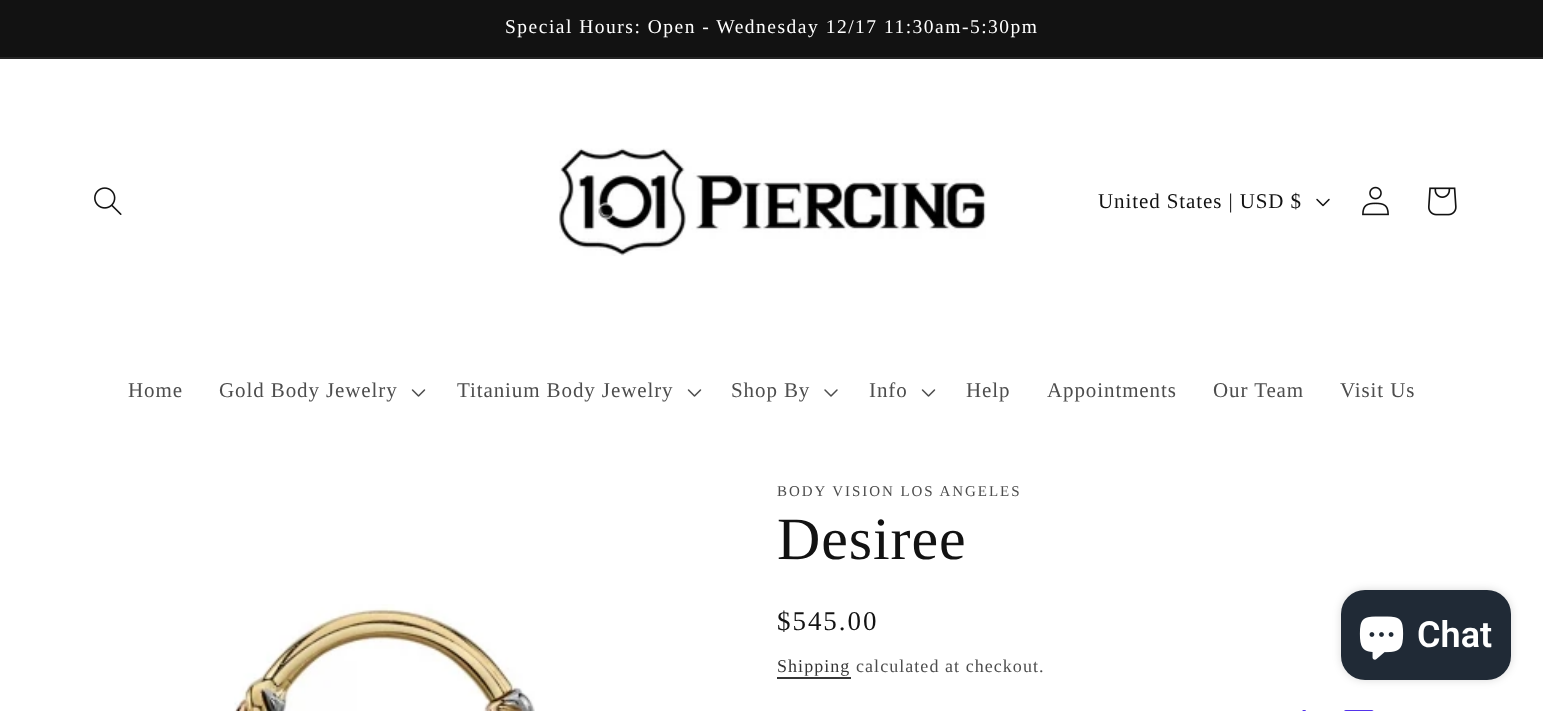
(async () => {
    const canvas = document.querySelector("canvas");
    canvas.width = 1543;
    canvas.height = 711;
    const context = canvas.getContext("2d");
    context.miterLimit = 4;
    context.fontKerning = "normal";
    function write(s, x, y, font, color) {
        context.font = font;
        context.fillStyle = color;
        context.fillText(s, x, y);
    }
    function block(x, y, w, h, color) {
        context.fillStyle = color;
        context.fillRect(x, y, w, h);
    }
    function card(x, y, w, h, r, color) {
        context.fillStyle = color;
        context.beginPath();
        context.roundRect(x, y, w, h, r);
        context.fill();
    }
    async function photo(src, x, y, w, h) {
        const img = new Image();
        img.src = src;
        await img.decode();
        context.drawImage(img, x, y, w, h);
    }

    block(0, 0, 1543, 711, "rgb(255, 255, 255)");
    block(0, 0, 1543, 57, "rgb(18, 18, 18)");
    block(0, 57, 1543, 2, "rgb(37, 37, 37)");
    context.letterSpacing = "1.5px";
    write("Special Hours: Open - Wednesday 12/17 11:30am-5:30pm", 505, 33, "19.5px Liberation Serif", "rgb(255, 255, 255)");
    await photo("media/1.png", 94, 187, 28, 28);
    await photo("media/2.png", 559, 148, 427, 108);
    context.letterSpacing = "0.9px";
    write("United States | USD $", 1098, 208, "21px Liberation Serif", "rgb(18, 18, 18)");
    await photo("media/3.png", 1316, 198, 14, 9);
    await photo("media/4.png", 1362, 186, 27, 30);
    await photo("media/5.png", 1428, 187, 29, 29);
    write("Home", 128, 397, "21px Liberation Serif", "rgb(77, 77, 77)");
    write("Gold Body Jewelry", 219, 397, "21px Liberation Serif", "rgb(77, 77, 77)");
    await photo("media/6.png", 411, 389, 15, 8);
    write("Titanium Body Jewelry", 457, 397, "21px Liberation Serif", "rgb(77, 77, 77)");
    await photo("media/6.png", 687, 389, 15, 8);
    write("Shop By", 731, 397, "21px Liberation Serif", "rgb(77, 77, 77)");
    await photo("media/7.png", 824, 389, 14, 8);
    write("Info", 869, 397, "21px Liberation Serif", "rgb(77, 77, 77)");
    await photo("media/6.png", 921, 389, 15, 8);
    write("Help", 966, 397, "21px Liberation Serif", "rgb(77, 77, 77)");
    write("Appointments", 1047, 397, "21px Liberation Serif", "rgb(77, 77, 77)");
    write("Our Team", 1213, 397, "21px Liberation Serif", "rgb(77, 77, 77)");
    write("Visit Us", 1340, 397, "21px Liberation Serif", "rgb(77, 77, 77)");
    await photo("media/8.png", 234, 604, 301, 107);
    context.letterSpacing = "1.95px";
    write("BODY VISION LOS ANGELES", 777, 496, "15px Liberation Serif", "rgb(77, 77, 77)");
    context.letterSpacing = "0.9px";
    write("Desiree", 777, 559, "60px Liberation Serif", "rgb(18, 18, 18)");
    context.letterSpacing = "1.95px";
    write("$545.00", 777, 630, "27px Liberation Serif", "rgb(18, 18, 18)");
    context.letterSpacing = "1.05px";
    write("Shipping", 777, 672, "18px Liberation Serif", "rgb(54, 54, 54)");
    block(777, 677, 74, 2, "rgb(54, 54, 54)");
    write("calculated at checkout.", 856, 672, "18px Liberation Serif", "rgb(77, 77, 77)");
    await photo("media/9.png", 1302, 710, 72, 1);
    context.fillStyle = "rgba(0, 0, 0, 0.15)";
    context.filter = "blur(4px)";
    context.beginPath();
    context.roundRect(1341, 590, 170, 90, 24);
    context.fill();
    context.filter = "none";
    card(1341, 590, 170, 90, 24, "rgb(32, 42, 54)");
    await photo("media/10.png", 1359, 616, 45, 44);
    context.letterSpacing = "0px";
    write("Chat", 1417, 647, "600 36px Roboto", "rgb(255, 255, 255)");
})();
